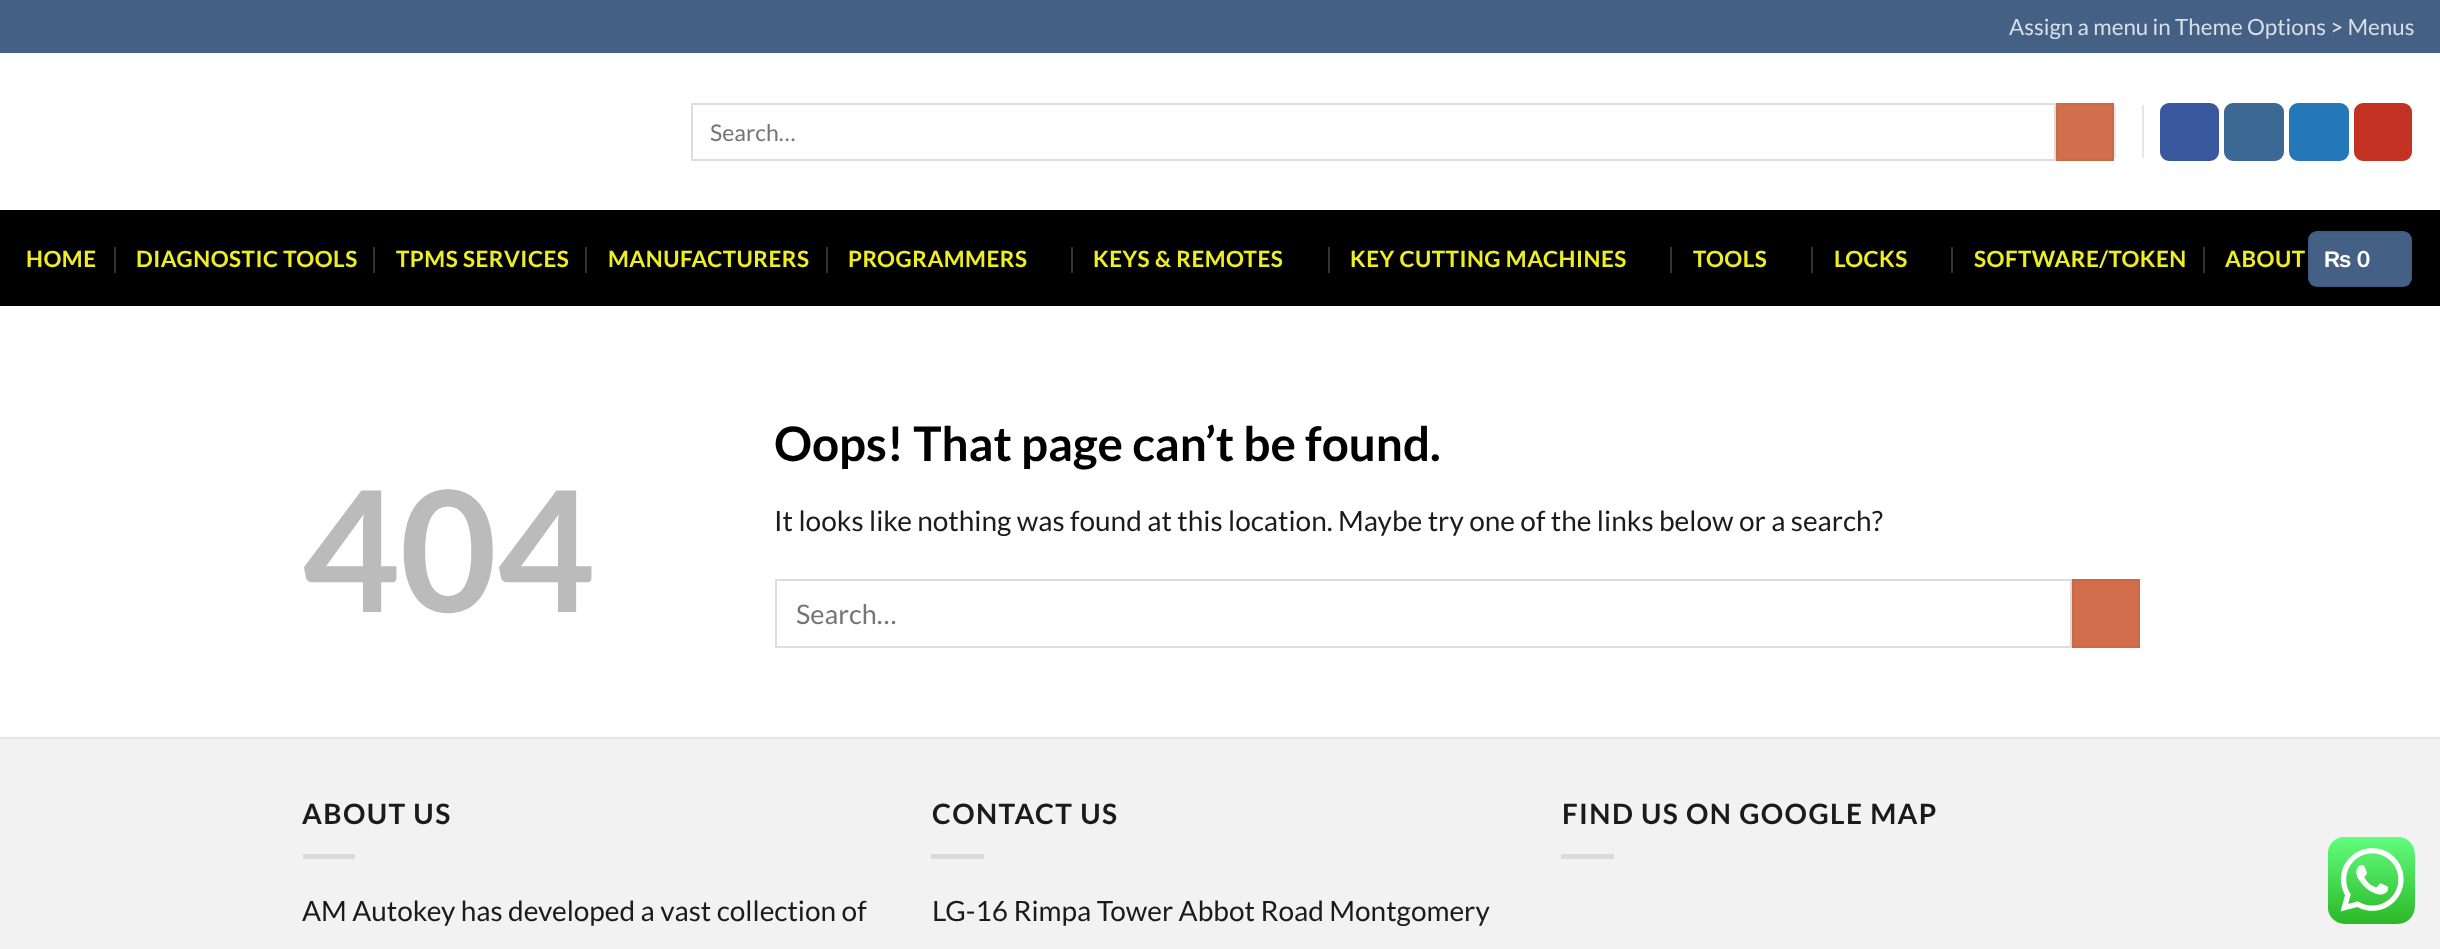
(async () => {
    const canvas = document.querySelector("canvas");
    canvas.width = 2440;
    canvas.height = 949;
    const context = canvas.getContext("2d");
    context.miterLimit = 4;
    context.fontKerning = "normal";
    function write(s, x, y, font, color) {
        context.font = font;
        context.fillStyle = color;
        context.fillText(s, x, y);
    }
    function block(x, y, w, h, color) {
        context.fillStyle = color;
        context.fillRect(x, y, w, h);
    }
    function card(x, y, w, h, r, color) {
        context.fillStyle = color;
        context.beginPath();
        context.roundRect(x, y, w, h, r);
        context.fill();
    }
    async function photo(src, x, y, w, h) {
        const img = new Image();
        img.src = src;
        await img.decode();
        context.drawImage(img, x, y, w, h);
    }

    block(0, 0, 2440, 949, "rgb(255, 255, 255)");
    block(0, 0, 2440, 53, "rgb(68, 96, 132)");
    write("Assign a menu in Theme Options > Menus", 2009, 35, "22.4px Lato", "rgb(218, 223, 230)");
    context.strokeStyle = "rgb(221, 221, 221)";
    context.lineWidth = 2;
    context.strokeRect(692, 104, 1363, 56);
    write("Search…", 710, 141, "23px Lato", "rgb(117, 117, 117)");
    context.fillStyle = "rgb(210, 110, 75)";
    context.beginPath();
    context.rect(2057, 104, 56, 56);
    context.fill();
    context.strokeStyle = "rgb(200, 105, 71)";
    context.stroke();
    block(2114, 105, 2, 53, "rgb(230, 230, 230)");
    block(2142, 105, 2, 53, "rgb(230, 230, 230)");
    context.fillStyle = "rgb(58, 88, 157)";
    context.beginPath();
    context.roundRect(2161, 104, 57, 56, 8);
    context.fill();
    context.strokeStyle = "rgb(58, 88, 157)";
    context.stroke();
    context.fillStyle = "rgb(59, 105, 148)";
    context.beginPath();
    context.roundRect(2225, 104, 58, 56, 8);
    context.fill();
    context.strokeStyle = "rgb(59, 105, 148)";
    context.stroke();
    context.fillStyle = "rgb(36, 120, 186)";
    context.beginPath();
    context.roundRect(2290, 104, 58, 56, 8);
    context.fill();
    context.strokeStyle = "rgb(36, 120, 186)";
    context.stroke();
    context.fillStyle = "rgb(195, 50, 35)";
    context.beginPath();
    context.roundRect(2355, 104, 56, 56, 8);
    context.fill();
    context.strokeStyle = "rgb(195, 50, 35)";
    context.stroke();
    block(0, 210, 2440, 96, "rgb(0, 0, 0)");
    block(26, 210, 2389, 2, "rgb(3, 3, 3)");
    context.letterSpacing = "0.5px";
    write("HOME", 26, 267, "bold 22.4px Lato", "rgb(238, 238, 34)");
    block(114, 247, 2, 26, "rgb(51, 51, 51)");
    write("DIAGNOSTIC TOOLS", 136, 267, "bold 22.4px Lato", "rgb(238, 238, 34)");
    block(373, 247, 2, 26, "rgb(51, 51, 51)");
    write("TPMS SERVICES", 396, 267, "bold 22.4px Lato", "rgb(238, 238, 34)");
    block(585, 247, 2, 26, "rgb(51, 51, 51)");
    write("MANUFACTURERS", 608, 267, "bold 22.4px Lato", "rgb(238, 238, 34)");
    block(826, 247, 2, 26, "rgb(51, 51, 51)");
    write("PROGRAMMERS", 848, 267, "bold 22.4px Lato", "rgb(238, 238, 34)");
    block(1071, 247, 2, 26, "rgb(51, 51, 51)");
    write("KEYS & REMOTES", 1093, 267, "bold 22.4px Lato", "rgb(238, 238, 34)");
    block(1328, 247, 2, 26, "rgb(51, 51, 51)");
    write("KEY CUTTING MACHINES", 1350, 267, "bold 22.4px Lato", "rgb(238, 238, 34)");
    block(1670, 247, 2, 26, "rgb(51, 51, 51)");
    write("TOOLS", 1693, 267, "bold 22.4px Lato", "rgb(238, 238, 34)");
    block(1811, 247, 2, 26, "rgb(51, 51, 51)");
    write("LOCKS", 1834, 267, "bold 22.4px Lato", "rgb(238, 238, 34)");
    block(1951, 247, 2, 26, "rgb(51, 51, 51)");
    write("SOFTWARE/TOKEN", 1974, 267, "bold 22.4px Lato", "rgb(238, 238, 34)");
    block(2203, 247, 2, 26, "rgb(51, 51, 51)");
    write("ABOUT", 2225, 267, "bold 22.4px Lato", "rgb(238, 238, 34)");
    card(2308, 231, 104, 56, 9, "rgb(68, 96, 132)");
    context.strokeStyle = "rgba(0, 0, 0, 0.05)";
    context.strokeRect(2309, 232, 102, 54);
    context.letterSpacing = "1px";
    write("₨", 2324, 267, "bold 22.4px Liberation Sans", "rgb(255, 255, 255)");
    write("0", 2357, 267, "bold 22.4px Lato", "rgb(255, 255, 255)");
    context.letterSpacing = "0px";
    write("404", 302, 612, "bold 168px Lato", "rgb(187, 187, 187)");
    write("Oops! That page can’t be found.", 774, 461, "bold 47.6px Lato", "rgb(0, 0, 0)");
    write("It looks like nothing was found at this location. Maybe try one of the links below or a search?", 774, 531, "28px Lato", "rgb(28, 27, 28)");
    context.strokeStyle = "rgb(221, 221, 221)";
    context.strokeRect(776, 580, 1295, 67);
    write("Search…", 796, 624, "27px Lato", "rgb(117, 117, 117)");
    context.fillStyle = "rgb(210, 110, 75)";
    context.beginPath();
    context.rect(2073, 580, 66, 67);
    context.fill();
    context.strokeStyle = "rgb(200, 105, 71)";
    context.stroke();
    block(0, 739, 2440, 210, "rgb(242, 242, 242)");
    block(0, 737, 2440, 2, "rgb(230, 230, 230)");
    context.letterSpacing = "1.4px";
    write("ABOUT US", 302, 824, "bold 28px Lato", "rgb(28, 27, 28)");
    block(303, 854, 52, 5, "rgb(218, 218, 218)");
    context.letterSpacing = "0px";
    write("AM Autokey has developed a vast collection of", 302, 921, "28px Lato", "rgb(28, 27, 28)");
    context.letterSpacing = "1.4px";
    write("CONTACT US", 932, 824, "bold 28px Lato", "rgb(28, 27, 28)");
    block(931, 854, 53, 5, "rgb(218, 218, 218)");
    context.letterSpacing = "0px";
    write("LG-16 Rimpa Tower Abbot Road Montgomery", 932, 921, "28px Lato", "rgb(28, 27, 28)");
    context.letterSpacing = "1.4px";
    write("FIND US ON GOOGLE MAP", 1562, 824, "bold 28px Lato", "rgb(28, 27, 28)");
    block(1561, 854, 53, 5, "rgb(218, 218, 218)");
    await photo("media/1.png", 2328, 837, 87, 87);
})();
